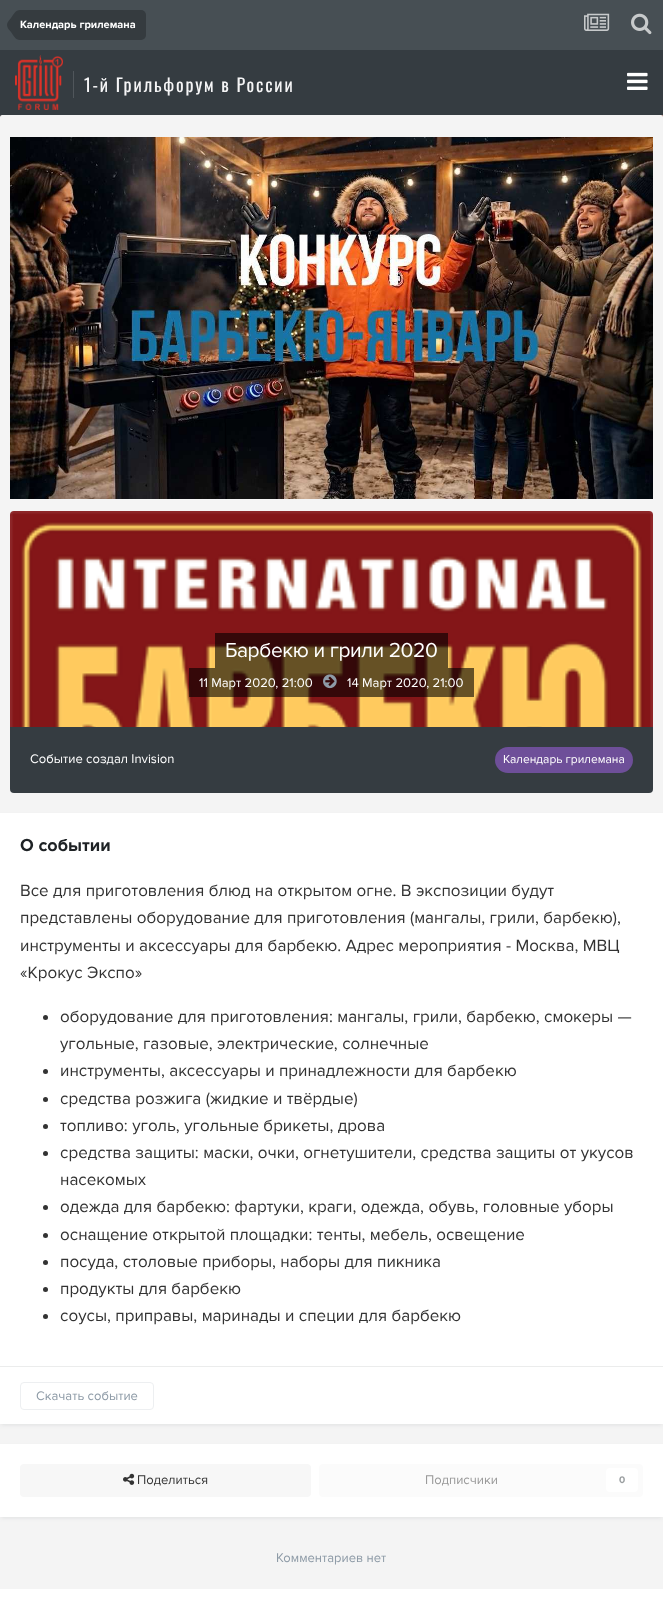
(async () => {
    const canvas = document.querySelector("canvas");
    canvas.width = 663;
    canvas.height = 1618;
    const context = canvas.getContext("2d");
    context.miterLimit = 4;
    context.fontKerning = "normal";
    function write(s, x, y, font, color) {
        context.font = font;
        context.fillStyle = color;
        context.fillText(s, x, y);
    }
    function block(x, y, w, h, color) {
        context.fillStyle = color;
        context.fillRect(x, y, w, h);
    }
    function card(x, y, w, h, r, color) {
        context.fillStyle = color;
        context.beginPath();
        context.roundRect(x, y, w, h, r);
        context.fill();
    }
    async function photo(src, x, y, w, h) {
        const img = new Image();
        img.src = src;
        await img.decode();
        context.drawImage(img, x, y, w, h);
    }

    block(0, 0, 663, 1618, "rgb(255, 255, 255)");
    await photo("media/1.png", 0, 115, 663, 2);
    block(0, 0, 663, 50, "rgb(71, 79, 84)");
    context.fillStyle = "rgb(53, 59, 63)";
    context.beginPath();
    context.roundRect(20, 10, 126, 30, [0, 5, 5, 0]);
    context.fill();
    context.beginPath();
    context.moveTo(20, 25);
    context.lineTo(20, 40);
    context.bezierCurveTo(15.5, 40, 13.5, 35.5, 11, 32);
    context.bezierCurveTo(9.5, 30, 7, 28, 7, 25);
    context.closePath();
    context.moveTo(20, 25);
    context.lineTo(7, 25);
    context.bezierCurveTo(7, 22, 9.5, 20, 11, 18);
    context.bezierCurveTo(13.5, 14.5, 15.5, 10, 20, 10);
    context.closePath();
    context.fill();
    write("Календарь грилемана", 20, 28, "bold 11px Proxima Nova", "rgb(255, 255, 255)");
    await photo("media/2.png", 584, 13, 26, 18);
    await photo("media/3.png", 631, 13, 21, 22);
    block(0, 50, 663, 65, "rgb(53, 60, 65)");
    await photo("media/4.png", 15, 55, 48, 55);
    block(73, 71, 1, 27, "rgb(80, 86, 91)");
    context.letterSpacing = "1.8px";
    write("1-й Грильфорум в России", 84, 92, "18px Oswald", "rgb(245, 245, 246)");
    await photo("media/5.png", 627, 72, 21, 18);
    card(0, 115, 663, 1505, 2, "rgb(244, 244, 244)");
    await photo("media/6.png", 10, 137, 643, 362);
    await photo("media/7.png", 10, 511, 643, 216);
    block(215, 633, 233, 35, "rgba(0, 0, 0, 0.6)");
    context.letterSpacing = "-0.4px";
    write("Барбекю и грили 2020", 225, 657, "21px Proxima Nova", "rgb(255, 255, 255)");
    block(189, 668, 285, 29, "rgba(0, 0, 0, 0.6)");
    context.letterSpacing = "0px";
    write("11 Март 2020, 21:00", 199, 687, "13px Proxima Nova", "rgb(255, 255, 255)");
    await photo("media/8.png", 323, 674, 14, 15);
    write("14 Март 2020, 21:00", 347, 687, "13px Proxima Nova", "rgb(255, 255, 255)");
    context.fillStyle = "rgb(53, 60, 65)";
    context.beginPath();
    context.roundRect(10, 727, 643, 66, [0, 0, 4, 4]);
    context.fill();
    write("Событие создал Invision", 30, 763, "13px Proxima Nova", "rgb(255, 255, 255)");
    card(495, 747, 138, 26, 13, "rgb(110, 79, 153)");
    write("Календарь грилемана", 503, 763, "12px Proxima Nova", "rgb(255, 255, 255)");
    context.fillStyle = "rgba(53, 60, 65, 0.1)";
    context.filter = "blur(2px)";
    context.beginPath();
    context.rect(1, 816, 661, 609);
    context.fill();
    context.filter = "none";
    block(0, 813, 663, 611, "rgb(255, 255, 255)");
    write("О событии", 20, 851, "bold 18px Proxima Nova", "rgb(30, 34, 37)");
    write("Все для приготовления блюд на открытом огне. В экспозиции будут", 20, 896, "17px Proxima Nova", "rgb(51, 51, 51)");
    write("представлены оборудование для приготовления (мангалы, грили, барбекю),", 20, 923, "17px Proxima Nova", "rgb(51, 51, 51)");
    write("инструменты и аксессуары для барбекю. Адрес мероприятия - Москва, МВЦ", 20, 951, "17px Proxima Nova", "rgb(51, 51, 51)");
    write("«Крокус Экспо»", 20, 978, "17px Proxima Nova", "rgb(51, 51, 51)");
    context.beginPath();
    context.arc(45.5, 1017.5, 2.5, 0, Math.PI * 2);
    context.fill();
    write("оборудование для приготовления: мангалы, грили, барбекю, смокеры —", 60, 1022, "17px Proxima Nova", "rgb(51, 51, 51)");
    write("угольные, газовые, электрические, солнечные", 60, 1049, "17px Proxima Nova", "rgb(51, 51, 51)");
    context.beginPath();
    context.arc(45.5, 1071.5, 2.5, 0, Math.PI * 2);
    context.fill();
    write("инструменты, аксессуары и принадлежности для барбекю", 60, 1076, "17px Proxima Nova", "rgb(51, 51, 51)");
    context.beginPath();
    context.arc(45.5, 1099.5, 2.5, 0, Math.PI * 2);
    context.fill();
    write("средства розжига (жидкие и твёрдые)", 60, 1104, "17px Proxima Nova", "rgb(51, 51, 51)");
    context.beginPath();
    context.arc(45.5, 1126.5, 2.5, 0, Math.PI * 2);
    context.fill();
    write("топливо: уголь, угольные брикеты, дрова", 60, 1131, "17px Proxima Nova", "rgb(51, 51, 51)");
    context.beginPath();
    context.arc(45.5, 1153.5, 2.5, 0, Math.PI * 2);
    context.fill();
    write("средства защиты: маски, очки, огнетушители, средства защиты от укусов", 60, 1158, "17px Proxima Nova", "rgb(51, 51, 51)");
    write("насекомых", 60, 1185, "17px Proxima Nova", "rgb(51, 51, 51)");
    context.beginPath();
    context.arc(45.5, 1207.5, 2.5, 0, Math.PI * 2);
    context.fill();
    write("одежда для барбекю: фартуки, краги, одежда, обувь, головные уборы", 60, 1212, "17px Proxima Nova", "rgb(51, 51, 51)");
    context.beginPath();
    context.arc(45.5, 1235.5, 2.5, 0, Math.PI * 2);
    context.fill();
    write("оснащение открытой площадки: тенты, мебель, освещение", 60, 1240, "17px Proxima Nova", "rgb(51, 51, 51)");
    context.beginPath();
    context.arc(45.5, 1262.5, 2.5, 0, Math.PI * 2);
    context.fill();
    write("посуда, столовые приборы, наборы для пикника", 60, 1267, "17px Proxima Nova", "rgb(51, 51, 51)");
    context.beginPath();
    context.arc(45.5, 1289.5, 2.5, 0, Math.PI * 2);
    context.fill();
    write("продукты для барбекю", 60, 1294, "17px Proxima Nova", "rgb(51, 51, 51)");
    context.beginPath();
    context.arc(45.5, 1316.5, 2.5, 0, Math.PI * 2);
    context.fill();
    write("соусы, приправы, маринады и специи для барбекю", 60, 1321, "17px Proxima Nova", "rgb(51, 51, 51)");
    block(0, 1366, 663, 1, "rgb(235, 236, 236)");
    context.beginPath();
    context.roundRect(20.5, 1382.5, 133, 27, 3.5);
    context.strokeStyle = "rgb(237, 239, 241)";
    context.stroke();
    write("Скачать событие", 36, 1400, "13px Proxima Nova", "rgb(141, 154, 166)");
    context.fillStyle = "rgba(53, 60, 65, 0.1)";
    context.filter = "blur(2px)";
    context.beginPath();
    context.rect(1, 1447, 661, 71);
    context.fill();
    context.filter = "none";
    block(0, 1444, 663, 73, "rgb(255, 255, 255)");
    card(20, 1464, 291, 33, 4, "rgb(247, 247, 247)");
    await photo("media/9.png", 123, 1473, 12, 12);
    write("Поделиться", 137, 1484, "13px Proxima Nova", "rgb(51, 51, 51)");
    card(319, 1464, 324, 33, 4, "rgb(251, 251, 251)");
    write("Подписчики", 425, 1484, "13px Proxima Nova", "rgb(153, 153, 153)");
    card(606, 1468, 32, 24, 4, "rgb(255, 255, 255)");
    write("0", 619, 1483, "bold 10px Proxima Nova", "rgb(154, 158, 160)");
    write("Комментариев нет", 276, 1562, "13px Proxima Nova", "rgb(141, 154, 166)");
    block(0, 1589, 663, 29, "rgb(255, 255, 255)");
})();
